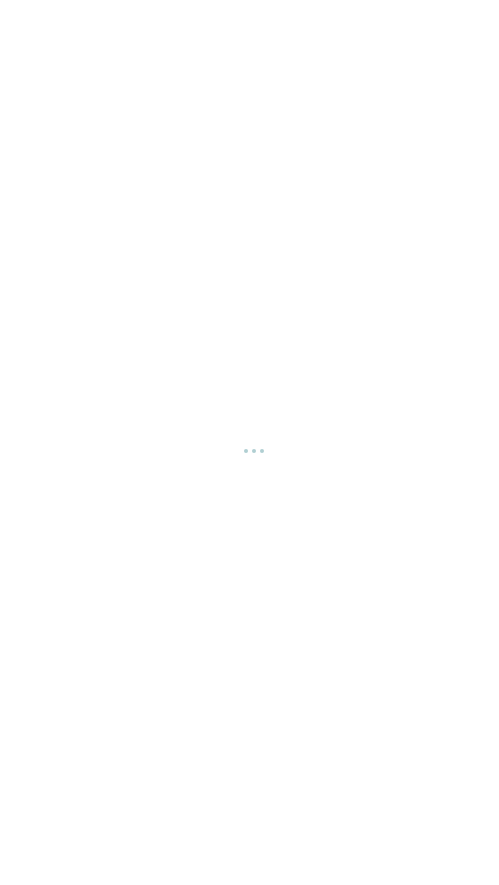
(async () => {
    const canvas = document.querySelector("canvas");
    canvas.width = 499;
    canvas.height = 885;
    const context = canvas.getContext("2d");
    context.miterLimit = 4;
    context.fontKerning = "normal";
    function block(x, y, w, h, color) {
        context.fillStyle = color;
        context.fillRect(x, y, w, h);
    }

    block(0, 0, 499, 885, "rgb(255, 255, 255)");
    context.fillStyle = "rgb(176, 207, 210)";
    context.beginPath();
    context.arc(246, 451, 2, 0, Math.PI * 2);
    context.fill();
    context.beginPath();
    context.arc(254, 451, 2, 0, Math.PI * 2);
    context.fill();
    context.beginPath();
    context.arc(262, 451, 2, 0, Math.PI * 2);
    context.fill();
})();
